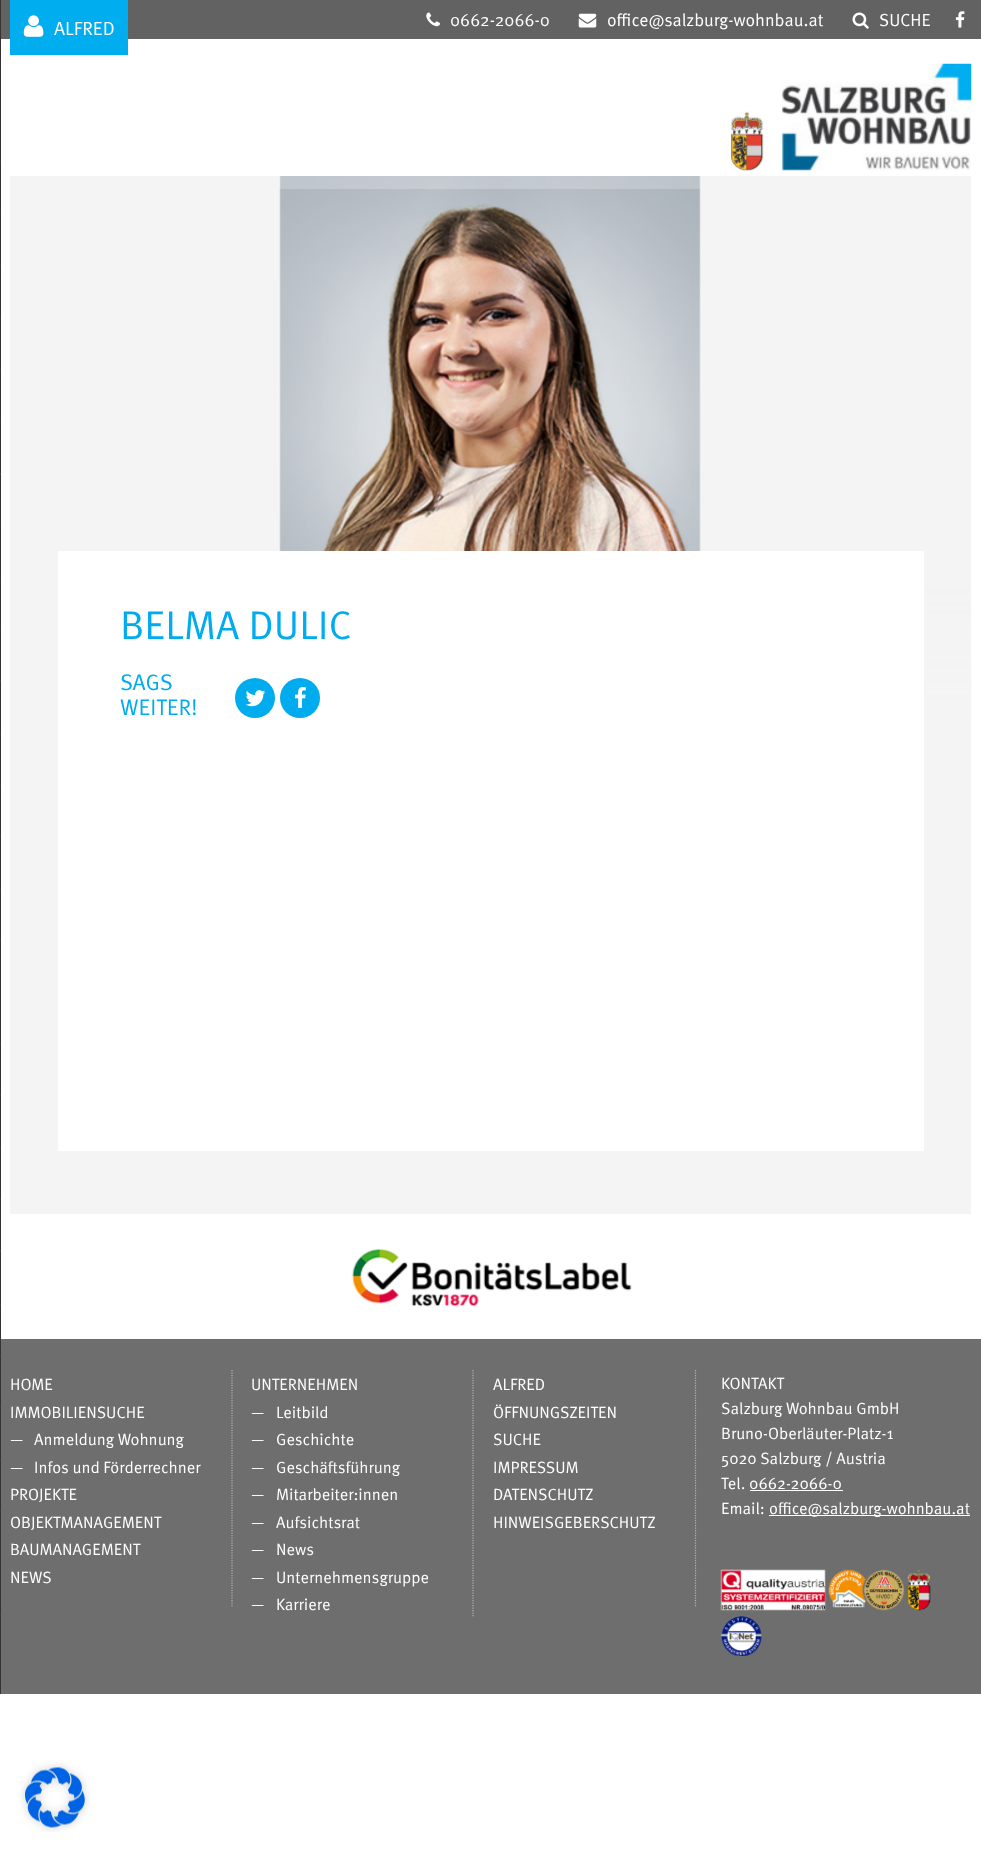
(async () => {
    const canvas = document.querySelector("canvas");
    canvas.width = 981;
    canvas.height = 1852;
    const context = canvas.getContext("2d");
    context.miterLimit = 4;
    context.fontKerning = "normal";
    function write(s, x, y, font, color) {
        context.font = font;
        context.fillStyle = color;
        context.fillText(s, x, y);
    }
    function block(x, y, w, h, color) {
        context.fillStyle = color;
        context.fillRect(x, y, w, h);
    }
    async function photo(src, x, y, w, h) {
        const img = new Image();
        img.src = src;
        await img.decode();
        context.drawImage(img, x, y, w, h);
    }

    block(0, 0, 981, 1852, "rgb(255, 255, 255)");
    block(0, 0, 1, 1694, "rgb(51, 51, 51)");
    block(0, 161, 1, 1, "rgb(65, 65, 65)");
    block(0, 213, 1, 1, "rgb(65, 65, 65)");
    block(0, 265, 1, 1, "rgb(65, 65, 65)");
    block(0, 318, 1, 1, "rgb(65, 65, 65)");
    block(0, 369, 1, 1, "rgb(65, 65, 65)");
    block(0, 421, 1, 1, "rgb(65, 65, 65)");
    block(0, 473, 1, 2, "rgb(65, 65, 65)");
    block(0, 525, 1, 1, "rgb(65, 65, 65)");
    block(0, 578, 1, 1, "rgb(65, 65, 65)");
    block(0, 629, 1, 1, "rgb(65, 65, 65)");
    block(0, 680, 1, 2, "rgb(65, 65, 65)");
    block(0, 734, 1, 1, "rgb(65, 65, 65)");
    block(0, 785, 1, 1, "rgb(65, 65, 65)");
    block(0, 836, 1, 1, "rgb(65, 65, 65)");
    block(0, 889, 1, 1, "rgb(65, 65, 65)");
    block(0, 940, 1, 1, "rgb(65, 65, 65)");
    block(0, 1044, 1, 1, "rgb(65, 65, 65)");
    block(0, 1095, 1, 1, "rgb(65, 65, 65)");
    block(0, 1148, 1, 1, "rgb(65, 65, 65)");
    block(0, 1199, 1, 1, "rgb(65, 65, 65)");
    block(0, 1250, 1, 2, "rgb(65, 65, 65)");
    block(0, 1304, 1, 1, "rgb(65, 65, 65)");
    block(0, 1355, 1, 1, "rgb(65, 65, 65)");
    block(0, 1406, 1, 1, "rgb(65, 65, 65)");
    block(0, 1459, 1, 1, "rgb(65, 65, 65)");
    block(0, 1510, 1, 1, "rgb(65, 65, 65)");
    block(0, 1614, 1, 1, "rgb(65, 65, 65)");
    block(1, 0, 980, 39, "rgb(98, 98, 98)");
    block(10, 0, 118, 55, "rgb(0, 174, 239)");
    await photo("media/1.png", 23, 15, 21, 22);
    write("ALFRED", 54, 35, "19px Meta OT", "rgb(255, 255, 255)");
    await photo("media/2.png", 426, 12, 14, 15);
    write("0662-2066-0", 450, 26, "17.5px Meta OT", "rgb(255, 255, 255)");
    await photo("media/3.png", 578, 13, 19, 15);
    write("office@salzburg-wohnbau.at", 607, 26, "17.5px Meta OT", "rgb(255, 255, 255)");
    await photo("media/4.png", 852, 12, 17, 17);
    write("SUCHE", 879, 26, "17.5px Meta OT", "rgb(255, 255, 255)");
    await photo("media/5.png", 955, 11, 10, 17);
    await photo("media/6.png", 731, 111, 33, 60);
    await photo("media/7.png", 782, 63, 190, 108);
    block(10, 176, 961, 1038, "rgb(244, 244, 244)");
    await photo("media/8.png", 279, 176, 422, 375);
    block(279, 176, 422, 13, "rgba(255, 255, 255, 0.22)");
    await photo("media/9.png", 924, 580, 48, 146);
    block(58, 551, 866, 600, "rgb(255, 255, 255)");
    write("BELMA DULIC", 120, 639, "40px Meta OT", "rgb(0, 171, 238)");
    write("SAGS", 120, 690, "22.5px Meta OT", "rgb(0, 171, 238)");
    write("WEITER!", 120, 715, "22.5px Meta OT", "rgb(0, 171, 238)");
    context.beginPath();
    context.arc(255, 698, 20, 0, Math.PI * 2);
    context.fill();
    await photo("media/10.png", 245, 690, 21, 17);
    context.beginPath();
    context.arc(300, 698, 20, 0, Math.PI * 2);
    context.fill();
    await photo("media/11.png", 294, 687, 12, 21);
    await photo("media/12.png", 351, 1248, 281, 59);
    block(1, 1339, 980, 355, "rgb(110, 110, 110)");
    context.beginPath();
    context.moveTo(232, 1370);
    context.lineTo(232, 1607.5);
    context.strokeStyle = "rgb(177, 177, 177)";
    context.lineWidth = 1.2;
    context.setLineDash([1.25, 1.25]);
    context.stroke();
    write("HOME", 10, 1390, "16.25px Meta OT", "rgb(255, 255, 255)");
    write("IMMOBILIENSUCHE", 10, 1418, "16.25px Meta OT", "rgb(255, 255, 255)");
    write("—", 10, 1445, "16.25px Meta OT", "rgb(255, 255, 255)");
    write("Anmeldung Wohnung", 34, 1445, "16.25px Meta OT", "rgb(255, 255, 255)");
    write("—", 10, 1473, "16.25px Meta OT", "rgb(255, 255, 255)");
    write("Infos und Förderrechner", 34, 1473, "16.25px Meta OT", "rgb(255, 255, 255)");
    write("PROJEKTE", 10, 1500, "16.25px Meta OT", "rgb(255, 255, 255)");
    write("OBJEKTMANAGEMENT", 10, 1528, "16.25px Meta OT", "rgb(255, 255, 255)");
    write("BAUMANAGEMENT", 10, 1555, "16.25px Meta OT", "rgb(255, 255, 255)");
    write("NEWS", 10, 1583, "16.25px Meta OT", "rgb(255, 255, 255)");
    context.beginPath();
    context.moveTo(473, 1370);
    context.lineTo(473, 1617.5);
    context.stroke();
    write("UNTERNEHMEN", 251, 1390, "16.25px Meta OT", "rgb(255, 255, 255)");
    write("—", 251, 1418, "16.25px Meta OT", "rgb(255, 255, 255)");
    write("Leitbild", 276, 1418, "16.25px Meta OT", "rgb(255, 255, 255)");
    write("—", 251, 1445, "16.25px Meta OT", "rgb(255, 255, 255)");
    write("Geschichte", 276, 1445, "16.25px Meta OT", "rgb(255, 255, 255)");
    write("—", 251, 1473, "16.25px Meta OT", "rgb(255, 255, 255)");
    write("Geschäftsführung", 276, 1473, "16.25px Meta OT", "rgb(255, 255, 255)");
    write("—", 251, 1500, "16.25px Meta OT", "rgb(255, 255, 255)");
    write("Mitarbeiter:innen", 276, 1500, "16.25px Meta OT", "rgb(255, 255, 255)");
    write("—", 251, 1528, "16.25px Meta OT", "rgb(255, 255, 255)");
    write("Aufsichtsrat", 276, 1528, "16.25px Meta OT", "rgb(255, 255, 255)");
    write("—", 251, 1555, "16.25px Meta OT", "rgb(255, 255, 255)");
    write("News", 276, 1555, "16.25px Meta OT", "rgb(255, 255, 255)");
    write("—", 251, 1583, "16.25px Meta OT", "rgb(255, 255, 255)");
    write("Unternehmensgruppe", 276, 1583, "16.25px Meta OT", "rgb(255, 255, 255)");
    write("—", 251, 1610, "16.25px Meta OT", "rgb(255, 255, 255)");
    write("Karriere", 276, 1610, "16.25px Meta OT", "rgb(255, 255, 255)");
    context.beginPath();
    context.moveTo(695.5, 1370);
    context.lineTo(695.5, 1607.5);
    context.stroke();
    write("ALFRED", 493, 1390, "16.25px Meta OT", "rgb(255, 255, 255)");
    write("ÖFFNUNGSZEITEN", 493, 1418, "16.25px Meta OT", "rgb(255, 255, 255)");
    write("SUCHE", 493, 1445, "16.25px Meta OT", "rgb(255, 255, 255)");
    write("IMPRESSUM", 493, 1473, "16.25px Meta OT", "rgb(255, 255, 255)");
    write("DATENSCHUTZ", 493, 1500, "16.25px Meta OT", "rgb(255, 255, 255)");
    write("HINWEISGEBERSCHUTZ", 493, 1528, "16.25px Meta OT", "rgb(255, 255, 255)");
    write("KONTAKT", 721, 1389, "16.25px Meta OT", "rgb(255, 255, 255)");
    write("Salzburg Wohnbau GmbH", 721, 1414, "16.25px Meta OT", "rgb(255, 255, 255)");
    write("Bruno-Oberläuter-Platz-1", 721, 1439, "16.25px Meta OT", "rgb(255, 255, 255)");
    write("5020 Salzburg / Austria", 721, 1464, "16.25px Meta OT", "rgb(255, 255, 255)");
    write("Tel. 0662-2066-0", 721, 1489, "16.25px Meta OT", "rgb(255, 255, 255)");
    block(750, 1490, 93, 1, "rgb(255, 255, 255)");
    write("Email:", 721, 1514, "16.25px Meta OT", "rgb(255, 255, 255)");
    block(769, 1515, 201, 1, "rgb(255, 255, 255)");
    write("office@salzburg-wohnbau.at", 769, 1514, "16.25px Meta OT", "rgb(255, 255, 255)");
    await photo("media/13.png", 720, 1569, 106, 42);
    await photo("media/14.png", 828, 1569, 76, 42);
    await photo("media/15.png", 906, 1569, 25, 42);
    await photo("media/16.png", 720, 1616, 42, 40);
    await photo("media/17.png", 20, 1762, 70, 70);
})();
